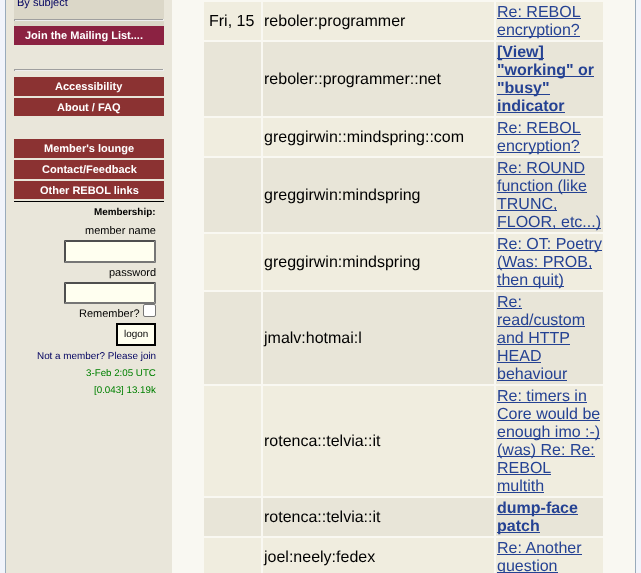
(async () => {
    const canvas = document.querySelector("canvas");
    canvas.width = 641;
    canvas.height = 573;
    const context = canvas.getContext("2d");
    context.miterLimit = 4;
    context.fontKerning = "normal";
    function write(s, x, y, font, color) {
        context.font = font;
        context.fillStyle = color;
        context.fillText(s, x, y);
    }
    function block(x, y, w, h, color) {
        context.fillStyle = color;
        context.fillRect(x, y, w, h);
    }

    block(0, 0, 641, 573, "rgb(241, 244, 251)");
    block(172, 0, 463, 573, "rgb(249, 248, 242)");
    context.strokeStyle = "rgb(153, 171, 187)";
    context.strokeRect(5.5, -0.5, 630, 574);
    block(6, 0, 166, 573, "rgb(233, 230, 218)");
    block(14, 0, 150, 26, "rgb(219, 215, 200)");
    write("By subject", 17, 6, "11px Liberation Sans", "rgb(0, 0, 96)");
    block(14, 19, 150, 1, "rgb(159, 159, 159)");
    block(163, 19, 1, 2, "rgb(238, 238, 238)");
    block(14, 20, 150, 1, "rgb(238, 238, 238)");
    block(14, 19, 1, 2, "rgb(159, 159, 159)");
    block(14, 26, 150, 19, "rgb(139, 34, 66)");
    write("Join the Mailing List....", 25, 39, "bold 11px Liberation Sans", "rgb(255, 255, 255)");
    block(14, 201, 150, 1, "rgb(0, 0, 0)");
    block(14, 69, 150, 1, "rgb(159, 159, 159)");
    block(163, 69, 1, 2, "rgb(238, 238, 238)");
    block(14, 70, 150, 1, "rgb(238, 238, 238)");
    block(14, 69, 1, 2, "rgb(159, 159, 159)");
    block(14, 77, 150, 19, "rgb(139, 50, 50)");
    write("Accessibility", 55, 90, "bold 11px Liberation Sans", "rgb(255, 255, 255)");
    block(14, 98, 150, 18, "rgb(139, 50, 50)");
    write("About / FAQ", 57, 111, "bold 11px Liberation Sans", "rgb(255, 255, 255)");
    block(14, 139, 150, 19, "rgb(139, 50, 50)");
    write("Member's lounge", 44, 152, "bold 11px Liberation Sans", "rgb(255, 255, 255)");
    block(14, 160, 150, 19, "rgb(139, 50, 50)");
    write("Contact/Feedback", 42, 173, "bold 11px Liberation Sans", "rgb(255, 255, 255)");
    block(14, 181, 150, 18, "rgb(139, 50, 50)");
    write("Other REBOL links", 40, 194, "bold 11px Liberation Sans", "rgb(255, 255, 255)");
    write("Membership:", 94, 215, "bold 9.9px Liberation Sans", "rgb(0, 0, 0)");
    write("member name", 85, 234, "11px Liberation Sans", "rgb(0, 0, 0)");
    block(64, 240, 92, 23, "rgb(255, 255, 240)");
    context.fillStyle = "rgb(79, 79, 79)";
    context.beginPath();
    context.moveTo(64, 240);
    context.lineTo(156, 240);
    context.lineTo(154, 242);
    context.lineTo(66, 242);
    context.closePath();
    context.fill();
    context.fillStyle = "rgb(118, 118, 118)";
    context.beginPath();
    context.moveTo(156, 240);
    context.lineTo(156, 263);
    context.lineTo(154, 261);
    context.lineTo(154, 242);
    context.closePath();
    context.fill();
    context.beginPath();
    context.moveTo(156, 263);
    context.lineTo(64, 263);
    context.lineTo(66, 261);
    context.lineTo(154, 261);
    context.closePath();
    context.fill();
    context.fillStyle = "rgb(79, 79, 79)";
    context.beginPath();
    context.moveTo(64, 263);
    context.lineTo(64, 240);
    context.lineTo(66, 242);
    context.lineTo(66, 261);
    context.closePath();
    context.fill();
    write("password", 109, 276, "11px Liberation Sans", "rgb(0, 0, 0)");
    block(64, 282, 92, 22, "rgb(255, 255, 240)");
    context.fillStyle = "rgb(79, 79, 79)";
    context.beginPath();
    context.moveTo(64, 282);
    context.lineTo(156, 282);
    context.lineTo(154, 284);
    context.lineTo(66, 284);
    context.closePath();
    context.fill();
    context.fillStyle = "rgb(118, 118, 118)";
    context.beginPath();
    context.moveTo(156, 282);
    context.lineTo(156, 304);
    context.lineTo(154, 302);
    context.lineTo(154, 284);
    context.closePath();
    context.fill();
    context.beginPath();
    context.moveTo(156, 304);
    context.lineTo(64, 304);
    context.lineTo(66, 302);
    context.lineTo(154, 302);
    context.closePath();
    context.fill();
    context.fillStyle = "rgb(79, 79, 79)";
    context.beginPath();
    context.moveTo(64, 304);
    context.lineTo(64, 282);
    context.lineTo(66, 284);
    context.lineTo(66, 302);
    context.closePath();
    context.fill();
    write("Remember?", 79, 317, "11px Liberation Sans", "rgb(0, 0, 0)");
    context.fillStyle = "rgb(255, 255, 255)";
    context.beginPath();
    context.roundRect(143.5, 304.5, 12, 12, 1.5);
    context.fill();
    context.strokeStyle = "rgb(118, 118, 118)";
    context.stroke();
    context.fillStyle = "rgb(255, 255, 240)";
    context.beginPath();
    context.rect(117, 324, 38, 21);
    context.fill();
    context.strokeStyle = "rgb(0, 0, 0)";
    context.lineWidth = 2;
    context.stroke();
    write("logon", 124, 337, "9.9px Liberation Sans", "rgb(0, 0, 0)");
    write("Not a member? Please join", 37, 359, "9.9px Liberation Sans", "rgb(0, 0, 96)");
    write("3-Feb 2:05 UTC", 86, 376, "9.75px Liberation Sans", "rgb(0, 128, 0)");
    write("[0.043] 13.19k", 94, 393, "9.75px Liberation Sans", "rgb(0, 128, 0)");
    block(204, 2, 57, 38, "rgb(240, 237, 223)");
    write("Fri, 15", 209, 26, "16px Liberation Sans", "rgb(0, 0, 0)");
    block(263, 2, 231, 38, "rgb(240, 237, 223)");
    write("reboler:programmer", 264, 26, "16px Liberation Sans", "rgb(0, 0, 0)");
    block(496, 2, 107, 38, "rgb(240, 237, 223)");
    write("Re: REBOL", 497, 17, "16px Liberation Sans", "rgb(37, 66, 147)");
    block(497, 18, 84, 1, "rgb(37, 66, 147)");
    block(497, 36, 83, 1, "rgb(37, 66, 147)");
    write("encryption?", 497, 35, "16px Liberation Sans", "rgb(37, 66, 147)");
    block(204, 42, 57, 74, "rgb(232, 229, 216)");
    block(263, 42, 231, 74, "rgb(232, 229, 216)");
    write("reboler::programmer::net", 264, 84, "16px Liberation Sans", "rgb(0, 0, 0)");
    block(496, 42, 107, 74, "rgb(232, 229, 216)");
    block(497, 58, 47, 1, "rgb(37, 66, 147)");
    write("[View]", 497, 57, "bold 16px Liberation Sans", "rgb(37, 66, 147)");
    block(497, 76, 97, 1, "rgb(37, 66, 147)");
    write("\"working\" or", 497, 75, "bold 16px Liberation Sans", "rgb(37, 66, 147)");
    block(497, 94, 53, 1, "rgb(37, 66, 147)");
    write("\"busy\"", 497, 93, "bold 16px Liberation Sans", "rgb(37, 66, 147)");
    write("indicator", 497, 111, "bold 16px Liberation Sans", "rgb(37, 66, 147)");
    block(497, 112, 68, 1, "rgb(37, 66, 147)");
    block(204, 118, 57, 38, "rgb(240, 237, 223)");
    block(263, 118, 231, 38, "rgb(240, 237, 223)");
    write("greggirwin::mindspring::com", 264, 142, "16px Liberation Sans", "rgb(0, 0, 0)");
    block(496, 118, 107, 38, "rgb(240, 237, 223)");
    write("Re: REBOL", 497, 133, "16px Liberation Sans", "rgb(37, 66, 147)");
    block(497, 134, 84, 1, "rgb(37, 66, 147)");
    block(497, 152, 83, 1, "rgb(37, 66, 147)");
    write("encryption?", 497, 151, "16px Liberation Sans", "rgb(37, 66, 147)");
    block(204, 158, 57, 74, "rgb(232, 229, 216)");
    block(263, 158, 231, 74, "rgb(232, 229, 216)");
    write("greggirwin:mindspring", 264, 200, "16px Liberation Sans", "rgb(0, 0, 0)");
    block(496, 158, 107, 74, "rgb(232, 229, 216)");
    write("Re: ROUND", 497, 173, "16px Liberation Sans", "rgb(37, 66, 147)");
    block(497, 174, 88, 1, "rgb(37, 66, 147)");
    block(497, 192, 90, 1, "rgb(37, 66, 147)");
    write("function (like", 497, 191, "16px Liberation Sans", "rgb(37, 66, 147)");
    block(497, 210, 60, 1, "rgb(37, 66, 147)");
    write("TRUNC,", 497, 209, "16px Liberation Sans", "rgb(37, 66, 147)");
    block(497, 228, 104, 1, "rgb(37, 66, 147)");
    write("FLOOR, etc...)", 497, 227, "16px Liberation Sans", "rgb(37, 66, 147)");
    block(204, 234, 57, 56, "rgb(240, 237, 223)");
    block(263, 234, 231, 56, "rgb(240, 237, 223)");
    write("greggirwin:mindspring", 264, 267, "16px Liberation Sans", "rgb(0, 0, 0)");
    block(496, 234, 107, 56, "rgb(240, 237, 223)");
    block(497, 250, 105, 1, "rgb(37, 66, 147)");
    write("Re: OT: Poetry", 497, 249, "16px Liberation Sans", "rgb(37, 66, 147)");
    block(497, 268, 95, 1, "rgb(37, 66, 147)");
    write("(Was: PROB,", 497, 267, "16px Liberation Sans", "rgb(37, 66, 147)");
    block(497, 286, 67, 1, "rgb(37, 66, 147)");
    write("then quit)", 497, 285, "16px Liberation Sans", "rgb(37, 66, 147)");
    block(204, 292, 57, 92, "rgb(232, 229, 216)");
    block(263, 292, 231, 92, "rgb(232, 229, 216)");
    write("jmalv:hotmai:l", 264, 343, "16px Liberation Sans", "rgb(0, 0, 0)");
    block(496, 292, 107, 92, "rgb(232, 229, 216)");
    write("Re:", 497, 307, "16px Liberation Sans", "rgb(37, 66, 147)");
    block(497, 308, 25, 1, "rgb(37, 66, 147)");
    write("read/custom", 497, 325, "16px Liberation Sans", "rgb(37, 66, 147)");
    block(497, 326, 88, 1, "rgb(37, 66, 147)");
    write("and HTTP", 497, 343, "16px Liberation Sans", "rgb(37, 66, 147)");
    block(497, 344, 73, 1, "rgb(37, 66, 147)");
    write("HEAD", 497, 361, "16px Liberation Sans", "rgb(37, 66, 147)");
    block(497, 362, 44, 1, "rgb(37, 66, 147)");
    write("behaviour", 497, 379, "16px Liberation Sans", "rgb(37, 66, 147)");
    block(497, 380, 70, 1, "rgb(37, 66, 147)");
    block(204, 386, 57, 110, "rgb(240, 237, 223)");
    block(263, 386, 231, 110, "rgb(240, 237, 223)");
    write("rotenca::telvia::it", 264, 446, "16px Liberation Sans", "rgb(0, 0, 0)");
    block(496, 386, 107, 110, "rgb(240, 237, 223)");
    write("Re: timers in", 497, 401, "16px Liberation Sans", "rgb(37, 66, 147)");
    block(497, 402, 90, 1, "rgb(37, 66, 147)");
    write("Core would be", 497, 419, "16px Liberation Sans", "rgb(37, 66, 147)");
    block(497, 420, 103, 1, "rgb(37, 66, 147)");
    block(497, 438, 103, 1, "rgb(37, 66, 147)");
    write("enough imo :-)", 497, 437, "16px Liberation Sans", "rgb(37, 66, 147)");
    block(497, 456, 98, 1, "rgb(37, 66, 147)");
    write("(was) Re: Re:", 497, 455, "16px Liberation Sans", "rgb(37, 66, 147)");
    write("REBOL", 497, 473, "16px Liberation Sans", "rgb(37, 66, 147)");
    block(497, 474, 54, 1, "rgb(37, 66, 147)");
    write("multith", 497, 491, "16px Liberation Sans", "rgb(37, 66, 147)");
    block(497, 492, 47, 1, "rgb(37, 66, 147)");
    block(204, 498, 57, 38, "rgb(232, 229, 216)");
    block(263, 498, 231, 38, "rgb(232, 229, 216)");
    write("rotenca::telvia::it", 264, 522, "16px Liberation Sans", "rgb(0, 0, 0)");
    block(496, 498, 107, 38, "rgb(232, 229, 216)");
    block(497, 514, 81, 1, "rgb(37, 66, 147)");
    write("dump-face", 497, 513, "bold 16px Liberation Sans", "rgb(37, 66, 147)");
    block(497, 532, 43, 1, "rgb(37, 66, 147)");
    write("patch", 497, 531, "bold 16px Liberation Sans", "rgb(37, 66, 147)");
    block(204, 538, 57, 35, "rgb(240, 237, 223)");
    block(263, 538, 231, 35, "rgb(240, 237, 223)");
    write("joel:neely:fedex", 264, 562, "16px Liberation Sans", "rgb(0, 0, 0)");
    block(496, 538, 107, 35, "rgb(240, 237, 223)");
    write("Re: Another", 497, 553, "16px Liberation Sans", "rgb(37, 66, 147)");
    block(497, 554, 85, 1, "rgb(37, 66, 147)");
    block(497, 572, 61, 1, "rgb(37, 66, 147)");
    write("question", 497, 571, "16px Liberation Sans", "rgb(37, 66, 147)");
})();
